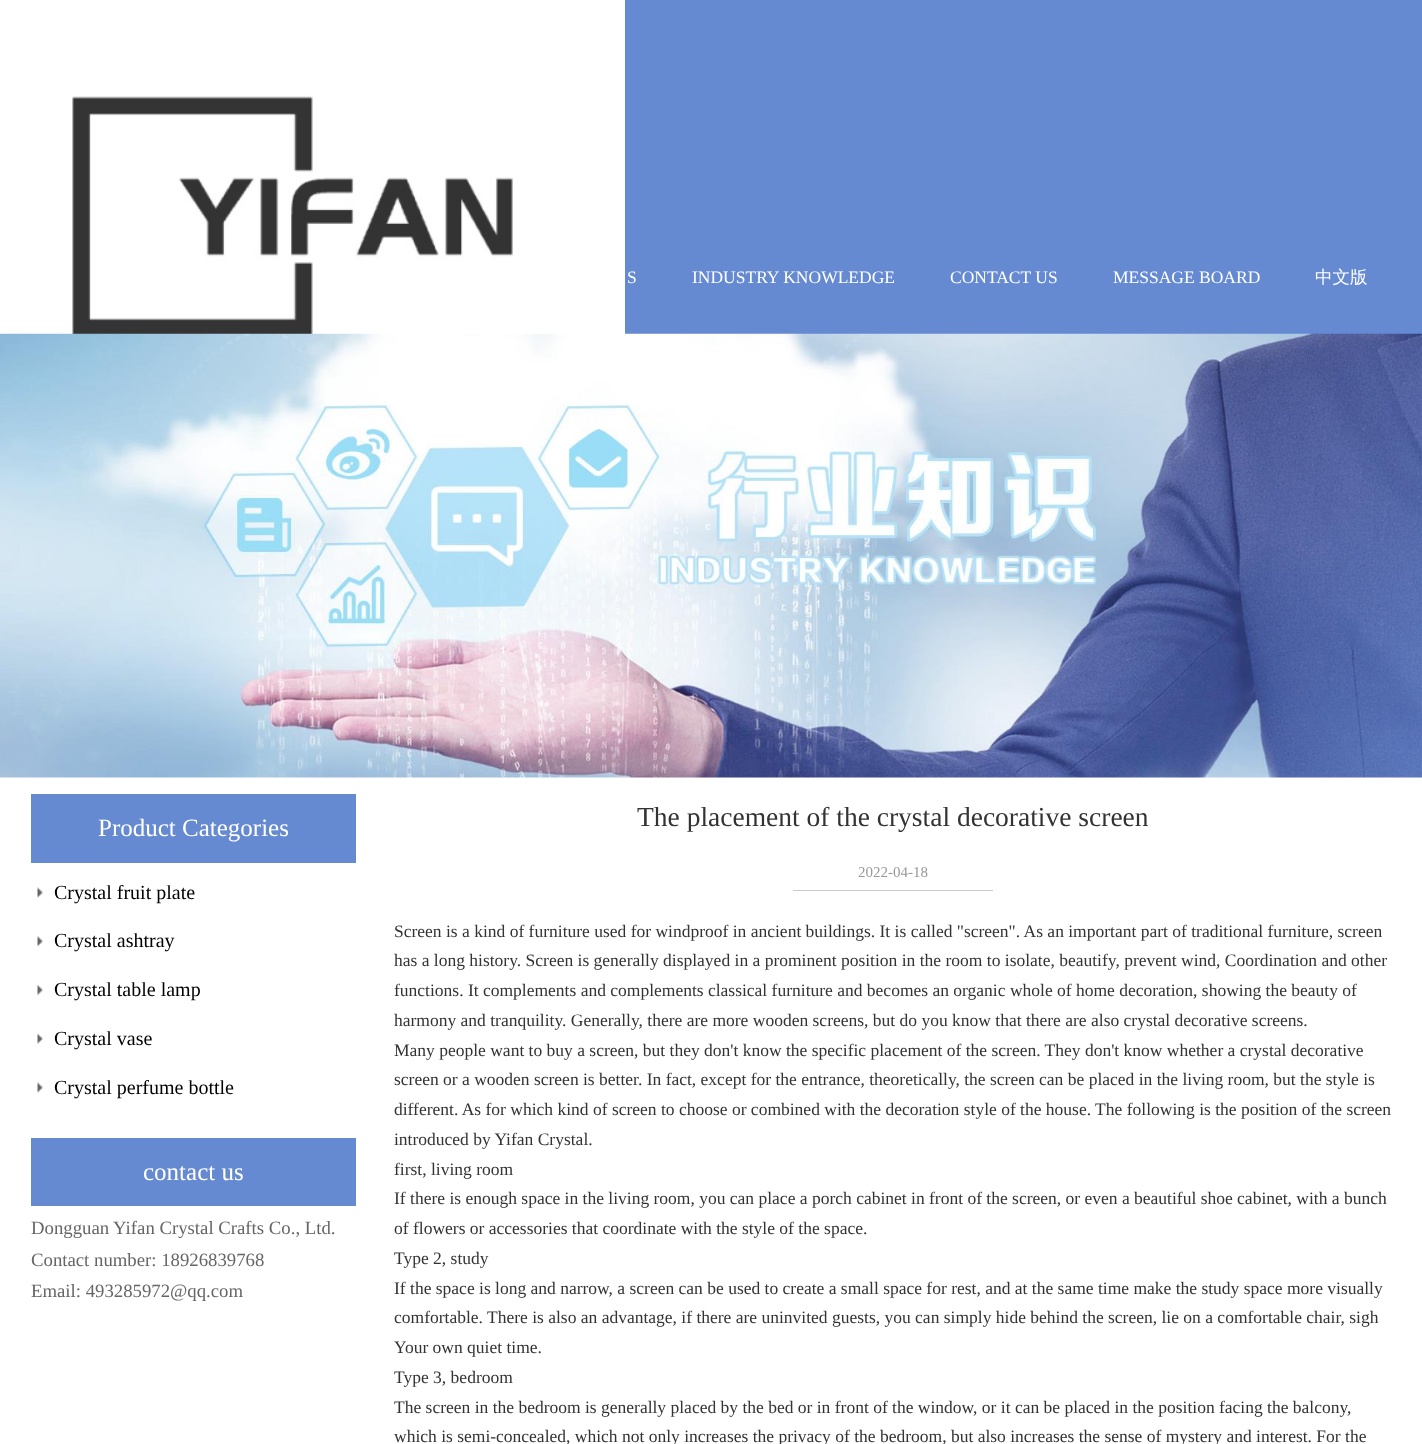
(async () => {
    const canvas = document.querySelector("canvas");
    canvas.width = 1422;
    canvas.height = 1444;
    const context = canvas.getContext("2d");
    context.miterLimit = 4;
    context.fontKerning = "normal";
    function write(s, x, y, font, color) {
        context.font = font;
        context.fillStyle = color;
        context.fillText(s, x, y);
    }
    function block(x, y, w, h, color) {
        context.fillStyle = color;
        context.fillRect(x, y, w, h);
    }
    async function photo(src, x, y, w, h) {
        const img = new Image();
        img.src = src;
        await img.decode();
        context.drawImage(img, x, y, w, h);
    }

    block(0, 0, 1422, 1444, "rgb(255, 255, 255)");
    block(625, 0, 797, 334, "rgb(101, 138, 209)");
    await photo("media/1.png", 0, 0, 625, 334);
    write("S", 627, 283, "17.5px Liberation Serif", "rgb(255, 255, 255)");
    write("INDUSTRY KNOWLEDGE", 692, 283, "17.5px Liberation Serif", "rgb(255, 255, 255)");
    write("CONTACT US", 950, 283, "17.5px Liberation Serif", "rgb(255, 255, 255)");
    write("MESSAGE BOARD", 1113, 283, "17.5px Liberation Serif", "rgb(255, 255, 255)");
    write("中文版", 1315, 283, "500 17.5px WenQuanYi Zen Hei", "rgb(255, 255, 255)");
    await photo("media/2.png", 0, 333, 1422, 445);
    block(31, 794, 325, 69, "rgb(101, 138, 209)");
    write("Product Categories", 98, 836, "25px Liberation Serif", "rgb(255, 255, 255)");
    await photo("media/3.png", 37, 887, 6, 11);
    write("Crystal fruit plate", 54, 899, "20px Liberation Serif", "rgb(0, 0, 0)");
    await photo("media/4.png", 37, 936, 6, 11);
    write("Crystal ashtray", 54, 947, "20px Liberation Serif", "rgb(0, 0, 0)");
    await photo("media/5.png", 37, 985, 6, 10);
    write("Crystal table lamp", 54, 996, "20px Liberation Serif", "rgb(0, 0, 0)");
    await photo("media/6.png", 37, 1033, 6, 11);
    write("Crystal vase", 54, 1045, "20px Liberation Serif", "rgb(0, 0, 0)");
    await photo("media/3.png", 37, 1082, 6, 11);
    write("Crystal perfume bottle", 54, 1094, "20px Liberation Serif", "rgb(0, 0, 0)");
    block(31, 1138, 325, 68, "rgb(101, 138, 209)");
    write("contact us", 143, 1180, "25px Liberation Serif", "rgb(255, 255, 255)");
    write("Dongguan Yifan Crystal Crafts Co., Ltd.", 31, 1234, "18.75px Liberation Serif", "rgb(102, 102, 102)");
    write("Contact number: 18926839768", 31, 1266, "18.75px Liberation Serif", "rgb(102, 102, 102)");
    write("Email: 493285972@qq.com", 31, 1297, "18.75px Liberation Serif", "rgb(102, 102, 102)");
    write("The placement of the crystal decorative screen", 637, 826, "27.5px Liberation Serif", "rgb(51, 51, 51)");
    block(793, 890, 200, 1, "rgb(204, 204, 204)");
    write("2022-04-18", 858, 877, "15px Liberation Serif", "rgb(153, 153, 153)");
    write("Screen is a kind of furniture used for windproof in ancient buildings. It is called \"screen\". As an important part of traditional furniture, screen", 394, 937, "17.5px Liberation Serif", "rgb(51, 51, 51)");
    write("has a long history. Screen is generally displayed in a prominent position in the room to isolate, beautify, prevent wind, Coordination and other", 394, 966, "17.5px Liberation Serif", "rgb(51, 51, 51)");
    write("functions. It complements and complements classical furniture and becomes an organic whole of home decoration, showing the beauty of", 394, 996, "17.5px Liberation Serif", "rgb(51, 51, 51)");
    write("harmony and tranquility. Generally, there are more wooden screens, but do you know that there are also crystal decorative screens.", 394, 1026, "17.5px Liberation Serif", "rgb(51, 51, 51)");
    write("Many people want to buy a screen, but they don't know the specific placement of the screen. They don't know whether a crystal decorative", 394, 1056, "17.5px Liberation Serif", "rgb(51, 51, 51)");
    write("screen or a wooden screen is better. In fact, except for the entrance, theoretically, the screen can be placed in the living room, but the style is", 394, 1085, "17.5px Liberation Serif", "rgb(51, 51, 51)");
    write("different. As for which kind of screen to choose or combined with the decoration style of the house. The following is the position of the screen", 394, 1115, "17.5px Liberation Serif", "rgb(51, 51, 51)");
    write("introduced by Yifan Crystal.", 394, 1145, "17.5px Liberation Serif", "rgb(51, 51, 51)");
    write("first, living room", 394, 1175, "17.5px Liberation Serif", "rgb(51, 51, 51)");
    write("If there is enough space in the living room, you can place a porch cabinet in front of the screen, or even a beautiful shoe cabinet, with a bunch", 394, 1204, "17.5px Liberation Serif", "rgb(51, 51, 51)");
    write("of flowers or accessories that coordinate with the style of the space.", 394, 1234, "17.5px Liberation Serif", "rgb(51, 51, 51)");
    write("Type 2, study", 394, 1264, "17.5px Liberation Serif", "rgb(51, 51, 51)");
    write("If the space is long and narrow, a screen can be used to create a small space for rest, and at the same time make the study space more visually", 394, 1294, "17.5px Liberation Serif", "rgb(51, 51, 51)");
    write("comfortable. There is also an advantage, if there are uninvited guests, you can simply hide behind the screen, lie on a comfortable chair, sigh", 394, 1323, "17.5px Liberation Serif", "rgb(51, 51, 51)");
    write("Your own quiet time.", 394, 1353, "17.5px Liberation Serif", "rgb(51, 51, 51)");
    write("Type 3, bedroom", 394, 1383, "17.5px Liberation Serif", "rgb(51, 51, 51)");
    write("The screen in the bedroom is generally placed by the bed or in front of the window, or it can be placed in the position facing the balcony,", 394, 1413, "17.5px Liberation Serif", "rgb(51, 51, 51)");
    write("which is semi-concealed, which not only increases the privacy of the bedroom, but also increases the sense of mystery and interest. For the", 394, 1442, "17.5px Liberation Serif", "rgb(51, 51, 51)");
})();
